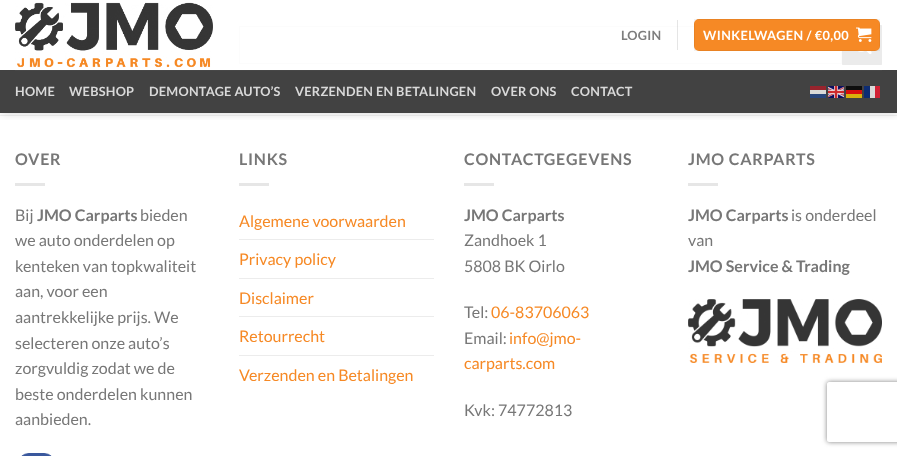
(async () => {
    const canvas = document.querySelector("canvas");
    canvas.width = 897;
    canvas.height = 456;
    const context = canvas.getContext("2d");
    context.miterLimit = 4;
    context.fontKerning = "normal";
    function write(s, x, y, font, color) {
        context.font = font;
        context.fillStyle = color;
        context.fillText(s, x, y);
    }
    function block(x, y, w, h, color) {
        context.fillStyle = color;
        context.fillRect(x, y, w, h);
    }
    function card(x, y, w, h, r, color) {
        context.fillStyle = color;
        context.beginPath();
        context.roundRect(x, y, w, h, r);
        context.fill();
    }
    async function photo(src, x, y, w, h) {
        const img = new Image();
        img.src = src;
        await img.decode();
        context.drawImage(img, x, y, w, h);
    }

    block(0, 0, 897, 456, "rgb(255, 255, 255)");
    context.strokeStyle = "rgb(252, 252, 252)";
    context.strokeRect(239.5, 26.5, 602, 37);
    context.fillStyle = "rgb(235, 235, 235)";
    context.beginPath();
    context.rect(842.5, 25.5, 39, 39);
    context.fill();
    context.strokeStyle = "rgb(235, 235, 235)";
    context.stroke();
    await photo("media/1.png", 857, 51, 15, 4);
    block(0, 115, 897, 1, "rgb(242, 242, 242)");
    context.save();
    context.beginPath();
    context.rect(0, 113, 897, 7);
    context.clip();
    context.fillStyle = "rgba(0, 0, 0, 0.15)";
    context.filter = "blur(5px)";
    context.beginPath();
    context.rect(1, 1, 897, 113);
    context.fill();
    context.filter = "none";
    context.restore();
    await photo("media/2.png", 15, 2, 198, 66);
    context.letterSpacing = "0.25px";
    write("LOGIN", 621, 40, "bold 12.75px Lato", "rgb(125, 125, 125)");
    block(677, 20, 1, 30, "rgba(0, 0, 0, 0.1)");
    card(694, 19, 186, 32, 5, "rgb(246, 137, 37)");
    context.strokeStyle = "rgba(0, 0, 0, 0.05)";
    context.strokeRect(694.5, 19.5, 185, 31);
    context.letterSpacing = "0.4px";
    write("WINKELWAGEN / €0,00", 703, 40, "bold 12.75px Lato", "rgb(255, 255, 255)");
    await photo("media/3.png", 856, 27, 16, 15);
    block(0, 70, 897, 43, "rgb(66, 66, 66)");
    block(15, 70, 867, 1, "rgb(71, 71, 71)");
    context.letterSpacing = "0.25px";
    write("HOME", 15, 96, "bold 12.75px Lato", "rgb(217, 217, 217)");
    write("WEBSHOP", 69, 96, "bold 12.75px Lato", "rgb(217, 217, 217)");
    write("DEMONTAGE AUTO’S", 149, 96, "bold 12.75px Lato", "rgb(217, 217, 217)");
    write("VERZENDEN EN BETALINGEN", 295, 96, "bold 12.75px Lato", "rgb(217, 217, 217)");
    write("OVER ONS", 491, 96, "bold 12.75px Lato", "rgb(217, 217, 217)");
    write("CONTACT", 571, 96, "bold 12.75px Lato", "rgb(217, 217, 217)");
    block(810, 86, 16, 4, "rgb(152, 36, 45)");
    await photo("media/4.png", 828, 86, 16, 12);
    block(846, 86, 16, 4, "rgb(13, 13, 13)");
    block(864, 86, 6, 12, "rgb(13, 44, 115)");
    block(870, 86, 5, 12, "rgb(217, 217, 217)");
    block(875, 86, 5, 12, "rgb(208, 32, 52)");
    block(810, 90, 16, 4, "rgb(217, 217, 217)");
    block(846, 90, 16, 4, "rgb(217, 13, 13)");
    block(810, 94, 16, 4, "rgb(40, 69, 124)");
    block(846, 94, 16, 4, "rgb(217, 176, 13)");
    context.letterSpacing = "0.75px";
    write("OVER", 15, 165, "bold 16px Lato", "rgb(119, 119, 119)");
    block(15, 183, 30, 3, "rgb(230, 230, 230)");
    context.letterSpacing = "0px";
    write("Bij", 15, 221, "16px Lato", "rgb(119, 119, 119)");
    write("JMO Carparts", 37, 221, "bold 16px Lato", "rgb(119, 119, 119)");
    write("bieden", 140, 221, "16px Lato", "rgb(119, 119, 119)");
    write("we auto onderdelen op", 15, 246, "16px Lato", "rgb(119, 119, 119)");
    write("kenteken van topkwaliteit", 15, 272, "16px Lato", "rgb(119, 119, 119)");
    write("aan, voor een", 15, 297, "16px Lato", "rgb(119, 119, 119)");
    write("aantrekkelijke prijs. We", 15, 323, "16px Lato", "rgb(119, 119, 119)");
    write("selecteren onze auto’s", 15, 349, "16px Lato", "rgb(119, 119, 119)");
    write("zorgvuldig zodat we de", 15, 374, "16px Lato", "rgb(119, 119, 119)");
    write("beste onderdelen kunnen", 15, 400, "16px Lato", "rgb(119, 119, 119)");
    write("aanbieden.", 15, 425, "16px Lato", "rgb(119, 119, 119)");
    context.fillStyle = "rgb(58, 88, 157)";
    context.beginPath();
    context.roundRect(17.5, 453.5, 38, 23, 19);
    context.fill();
    context.strokeStyle = "rgb(58, 88, 157)";
    context.stroke();
    context.letterSpacing = "0.75px";
    write("LINKS", 239, 165, "bold 16px Lato", "rgb(119, 119, 119)");
    block(239, 183, 30, 3, "rgb(230, 230, 230)");
    context.letterSpacing = "0px";
    write("Algemene voorwaarden", 239, 227, "16px Lato", "rgb(246, 137, 37)");
    block(239, 239, 195, 1, "rgb(236, 236, 236)");
    write("Privacy policy", 239, 265, "16px Lato", "rgb(246, 137, 37)");
    block(239, 278, 195, 1, "rgb(236, 236, 236)");
    write("Disclaimer", 239, 304, "16px Lato", "rgb(246, 137, 37)");
    block(239, 316, 195, 1, "rgb(236, 236, 236)");
    write("Retourrecht", 239, 342, "16px Lato", "rgb(246, 137, 37)");
    block(239, 355, 195, 1, "rgb(236, 236, 236)");
    write("Verzenden en Betalingen", 239, 381, "16px Lato", "rgb(246, 137, 37)");
    context.letterSpacing = "0.75px";
    write("CONTACTGEGEVENS", 464, 165, "bold 16px Lato", "rgb(119, 119, 119)");
    block(464, 183, 30, 3, "rgb(230, 230, 230)");
    context.letterSpacing = "0px";
    write("JMO Carparts", 464, 221, "bold 16px Lato", "rgb(119, 119, 119)");
    write("Zandhoek 1", 464, 246, "16px Lato", "rgb(119, 119, 119)");
    write("5808 BK Oirlo", 464, 272, "16px Lato", "rgb(119, 119, 119)");
    write("Tel:", 464, 318, "16px Lato", "rgb(119, 119, 119)");
    write("06-83706063", 491, 318, "16px Lato", "rgb(246, 137, 37)");
    write("Email:", 464, 344, "16px Lato", "rgb(119, 119, 119)");
    write("info@jmo-", 509, 344, "16px Lato", "rgb(246, 137, 37)");
    write("carparts.com", 464, 369, "16px Lato", "rgb(246, 137, 37)");
    write("Kvk: 74772813", 464, 416, "16px Lato", "rgb(119, 119, 119)");
    context.letterSpacing = "0.75px";
    write("JMO CARPARTS", 688, 165, "bold 16px Lato", "rgb(119, 119, 119)");
    block(688, 183, 30, 3, "rgb(230, 230, 230)");
    context.letterSpacing = "0px";
    write("JMO Carparts", 688, 221, "bold 16px Lato", "rgb(119, 119, 119)");
    write("is onderdeel", 791, 221, "16px Lato", "rgb(119, 119, 119)");
    write("van", 688, 246, "16px Lato", "rgb(119, 119, 119)");
    write("JMO Service & Trading", 688, 272, "bold 16px Lato", "rgb(119, 119, 119)");
    await photo("media/5.png", 688, 299, 194, 64);
    context.save();
    context.beginPath();
    context.moveTo(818, 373);
    context.lineTo(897, 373);
    context.lineTo(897, 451);
    context.lineTo(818, 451);
    context.closePath();
    context.moveTo(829, 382);
    context.lineTo(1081, 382);
    context.bezierCurveTo(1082, 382, 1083, 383, 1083, 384);
    context.lineTo(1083, 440);
    context.bezierCurveTo(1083, 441, 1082, 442, 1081, 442);
    context.lineTo(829, 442);
    context.bezierCurveTo(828, 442, 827, 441, 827, 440);
    context.lineTo(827, 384);
    context.bezierCurveTo(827, 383, 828, 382, 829, 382);
    context.closePath();
    context.clip("evenodd");
    context.fillStyle = "rgb(128, 128, 128)";
    context.filter = "blur(2.5px)";
    context.beginPath();
    context.roundRect(827, 382, 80, 60, 2);
    context.fill();
    context.filter = "none";
    context.restore();
})();
